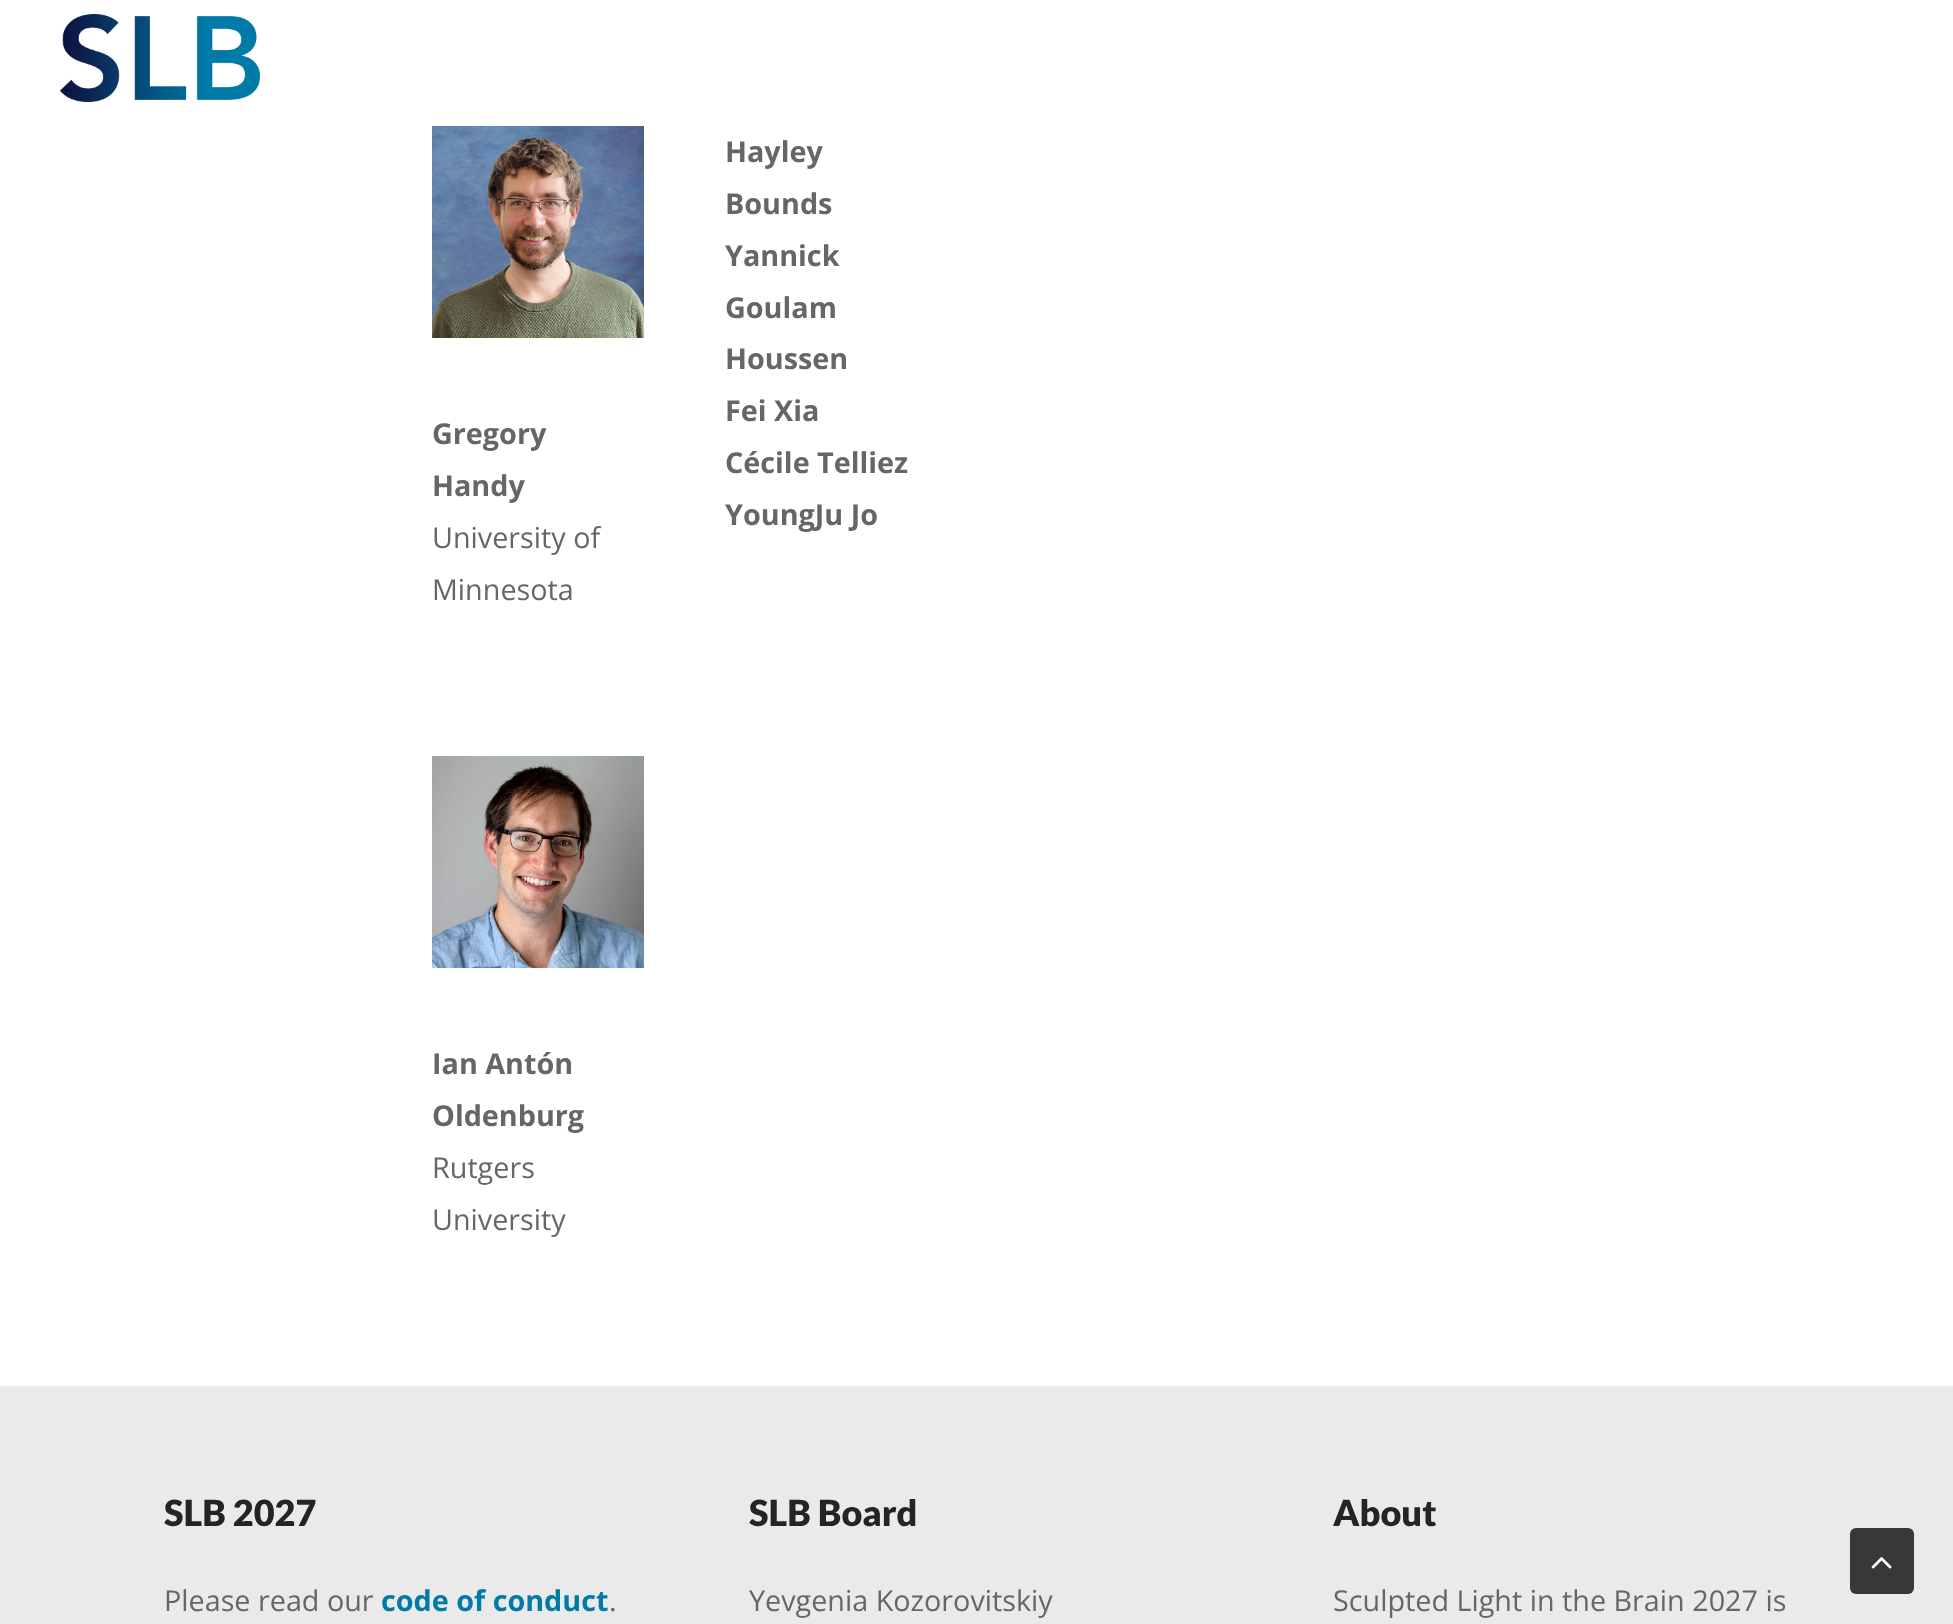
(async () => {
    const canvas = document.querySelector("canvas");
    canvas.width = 1953;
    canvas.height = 1624;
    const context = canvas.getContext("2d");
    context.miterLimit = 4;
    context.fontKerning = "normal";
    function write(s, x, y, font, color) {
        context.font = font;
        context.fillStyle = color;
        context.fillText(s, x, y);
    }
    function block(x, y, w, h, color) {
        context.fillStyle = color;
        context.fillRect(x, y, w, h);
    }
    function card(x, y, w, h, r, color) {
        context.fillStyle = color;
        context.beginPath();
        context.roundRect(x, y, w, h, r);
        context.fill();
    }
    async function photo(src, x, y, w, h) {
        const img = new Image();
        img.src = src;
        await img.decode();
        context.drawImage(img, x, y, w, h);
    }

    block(0, 0, 1953, 1624, "rgb(255, 255, 255)");
    await photo("media/1.png", 60, 14, 200, 88);
    await photo("media/2.png", 432, 126, 212, 212);
    write("Gregory", 432, 444, "bold 28.75px Open Sans", "rgb(102, 102, 102)");
    write("Handy", 432, 496, "bold 28.75px Open Sans", "rgb(102, 102, 102)");
    write("University of", 432, 548, "28.75px Open Sans", "rgb(102, 102, 102)");
    write("Minnesota", 432, 600, "28.75px Open Sans", "rgb(102, 102, 102)");
    write("Hayley", 725, 162, "bold 28.75px Open Sans", "rgb(102, 102, 102)");
    write("Bounds", 725, 214, "bold 28.75px Open Sans", "rgb(102, 102, 102)");
    write("Yannick", 725, 266, "bold 28.75px Open Sans", "rgb(102, 102, 102)");
    write("Goulam", 725, 318, "bold 28.75px Open Sans", "rgb(102, 102, 102)");
    write("Houssen", 725, 369, "bold 28.75px Open Sans", "rgb(102, 102, 102)");
    write("Fei Xia", 725, 421, "bold 28.75px Open Sans", "rgb(102, 102, 102)");
    write("Cécile Telliez", 725, 473, "bold 28.75px Open Sans", "rgb(102, 102, 102)");
    write("YoungJu Jo", 725, 525, "bold 28.75px Open Sans", "rgb(102, 102, 102)");
    await photo("media/3.png", 432, 756, 212, 212);
    write("Ian Antón", 432, 1074, "bold 28.75px Open Sans", "rgb(102, 102, 102)");
    write("Oldenburg", 432, 1126, "bold 28.75px Open Sans", "rgb(102, 102, 102)");
    write("Rutgers", 432, 1178, "28.75px Open Sans", "rgb(102, 102, 102)");
    write("University", 432, 1230, "28.75px Open Sans", "rgb(102, 102, 102)");
    block(0, 1386, 1953, 238, "rgb(234, 234, 234)");
    write("SLB 2027", 164, 1526, "900 36px Lato", "rgb(36, 36, 36)");
    write("Please read our", 164, 1611, "28.75px Open Sans", "rgb(102, 102, 102)");
    write("code of conduct", 381, 1611, "bold 28.75px Open Sans", "rgb(0, 123, 167)");
    write(".", 609, 1611, "28.75px Open Sans", "rgb(102, 102, 102)");
    write("SLB Board", 749, 1526, "900 36px Lato", "rgb(36, 36, 36)");
    write("Yevgenia Kozorovitskiy", 749, 1611, "28.75px Open Sans", "rgb(102, 102, 102)");
    write("About", 1333, 1526, "900 36px Lato", "rgb(36, 36, 36)");
    write("Sculpted Light in the Brain 2027 is", 1333, 1611, "28.75px Open Sans", "rgb(102, 102, 102)");
    card(1850, 1528, 64, 66, 6, "rgb(56, 56, 56)");
    await photo("media/4.png", 1871, 1557, 21, 12);
})();
